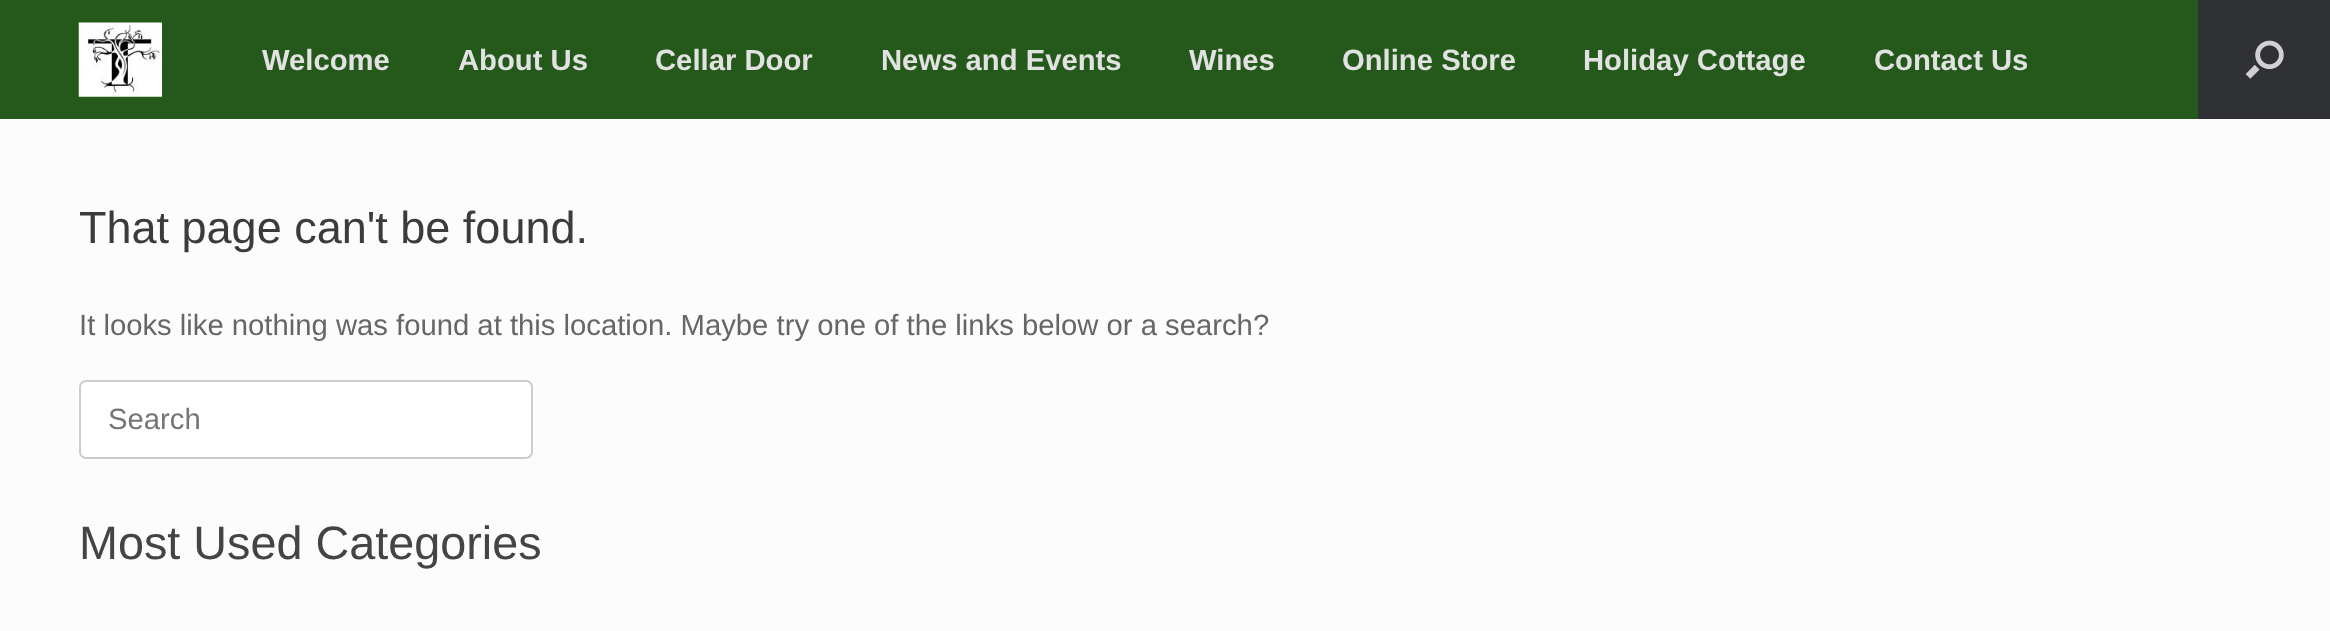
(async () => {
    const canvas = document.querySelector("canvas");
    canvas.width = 2330;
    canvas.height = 631;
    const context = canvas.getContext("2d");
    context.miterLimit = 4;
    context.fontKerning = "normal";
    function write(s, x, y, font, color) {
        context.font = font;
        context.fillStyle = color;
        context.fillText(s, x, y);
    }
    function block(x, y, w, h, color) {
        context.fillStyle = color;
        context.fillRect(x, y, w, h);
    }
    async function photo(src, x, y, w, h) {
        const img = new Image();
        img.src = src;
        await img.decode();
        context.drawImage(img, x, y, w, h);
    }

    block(0, 0, 2330, 631, "rgb(252, 252, 252)");
    block(0, 0, 2198, 119, "rgb(36, 89, 27)");
    await photo("media/1.png", 78, 22, 84, 75);
    write("Welcome", 262, 70, "bold 29.25px Liberation Sans", "rgb(226, 226, 226)");
    write("About Us", 458, 70, "bold 29.25px Liberation Sans", "rgb(226, 226, 226)");
    write("Cellar Door", 655, 70, "bold 29.25px Liberation Sans", "rgb(226, 226, 226)");
    write("News and Events", 881, 70, "bold 29.25px Liberation Sans", "rgb(226, 226, 226)");
    write("Wines", 1189, 70, "bold 29.25px Liberation Sans", "rgb(226, 226, 226)");
    write("Online Store", 1342, 70, "bold 29.25px Liberation Sans", "rgb(226, 226, 226)");
    write("Holiday Cottage", 1583, 70, "bold 29.25px Liberation Sans", "rgb(226, 226, 226)");
    write("Contact Us", 1874, 70, "bold 29.25px Liberation Sans", "rgb(226, 226, 226)");
    block(2198, 0, 132, 119, "rgb(48, 49, 52)");
    await photo("media/2.png", 2245, 40, 39, 39);
    write("That page can't be found.", 79, 243, "45px Liberation Sans", "rgb(59, 59, 59)");
    write("It looks like nothing was found at this location. Maybe try one of the links below or a search?", 79, 335, "29.25px Liberation Sans", "rgb(102, 102, 102)");
    context.fillStyle = "rgb(255, 255, 255)";
    context.beginPath();
    context.roundRect(80, 381, 452, 77, 6);
    context.fill();
    context.strokeStyle = "rgb(204, 204, 204)";
    context.lineWidth = 2;
    context.stroke();
    write("Search", 108, 429, "29.25px Liberation Sans", "rgb(117, 117, 117)");
    write("Most Used Categories", 79, 559, "46.75px Liberation Sans", "rgb(68, 68, 68)");
})();
